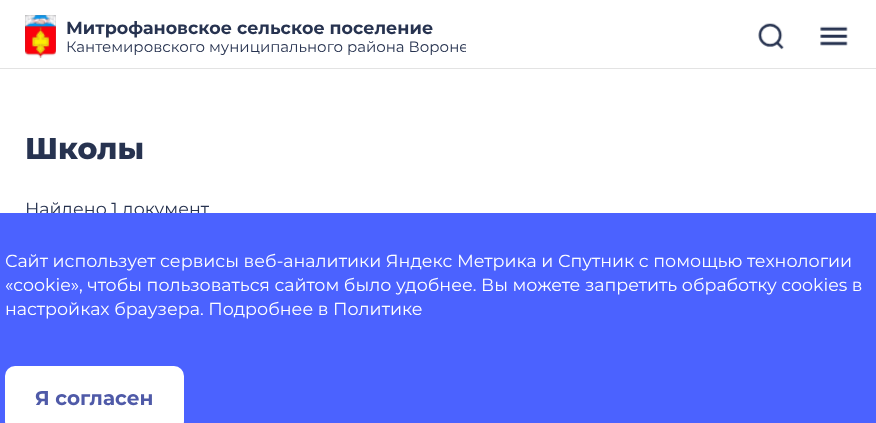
(async () => {
    const canvas = document.querySelector("canvas");
    canvas.width = 876;
    canvas.height = 423;
    const context = canvas.getContext("2d");
    context.miterLimit = 4;
    context.fontKerning = "normal";
    function write(s, x, y, font, color) {
        context.font = font;
        context.fillStyle = color;
        context.fillText(s, x, y);
    }
    function block(x, y, w, h, color) {
        context.fillStyle = color;
        context.fillRect(x, y, w, h);
    }
    function card(x, y, w, h, r, color) {
        context.fillStyle = color;
        context.beginPath();
        context.roundRect(x, y, w, h, r);
        context.fill();
    }
    async function photo(src, x, y, w, h) {
        const img = new Image();
        img.src = src;
        await img.decode();
        context.drawImage(img, x, y, w, h);
    }

    block(0, 0, 876, 423, "rgb(255, 255, 255)");
    block(0, 68, 876, 1, "rgb(227, 227, 227)");
    await photo("media/1.png", 25, 15, 31, 43);
    write("Митрофановское сельское поселение", 66, 34, "bold 17.5px Montserrat", "rgb(39, 51, 80)");
    context.save();
    context.beginPath();
    context.rect(66, 40, 400, 15);
    context.clip();
    write("Кантемировского муниципального района Вороне", 66, 52, "15px Montserrat", "rgb(39, 51, 80)");
    context.restore();
    await photo("media/2.png", 758, 23, 26, 27);
    await photo("media/3.png", 820, 26, 28, 20);
    write("Школы", 25, 159, "800 30px Montserrat", "rgb(39, 51, 80)");
    write("Найдено 1 документ", 25, 215, "17.5px Montserrat", "rgb(39, 51, 80)");
    block(0, 213, 876, 210, "rgb(75, 98, 255)");
    write("Сайт использует сервисы веб-аналитики Яндекс Метрика и Спутник с помощью технологии", 5, 267, "17.5px Montserrat", "rgb(255, 255, 255)");
    write("«cookie», чтобы пользоваться сайтом было удобнее. Вы можете запретить обработку cookies в", 5, 291, "17.5px Montserrat", "rgb(255, 255, 255)");
    write("настройках браузера. Подробнее в Политике", 5, 315, "17.5px Montserrat", "rgb(255, 255, 255)");
    card(5, 366, 179, 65, 10, "rgb(255, 255, 255)");
    write("Я согласен", 35, 405, "bold 20px Montserrat", "rgb(79, 90, 168)");
})();
